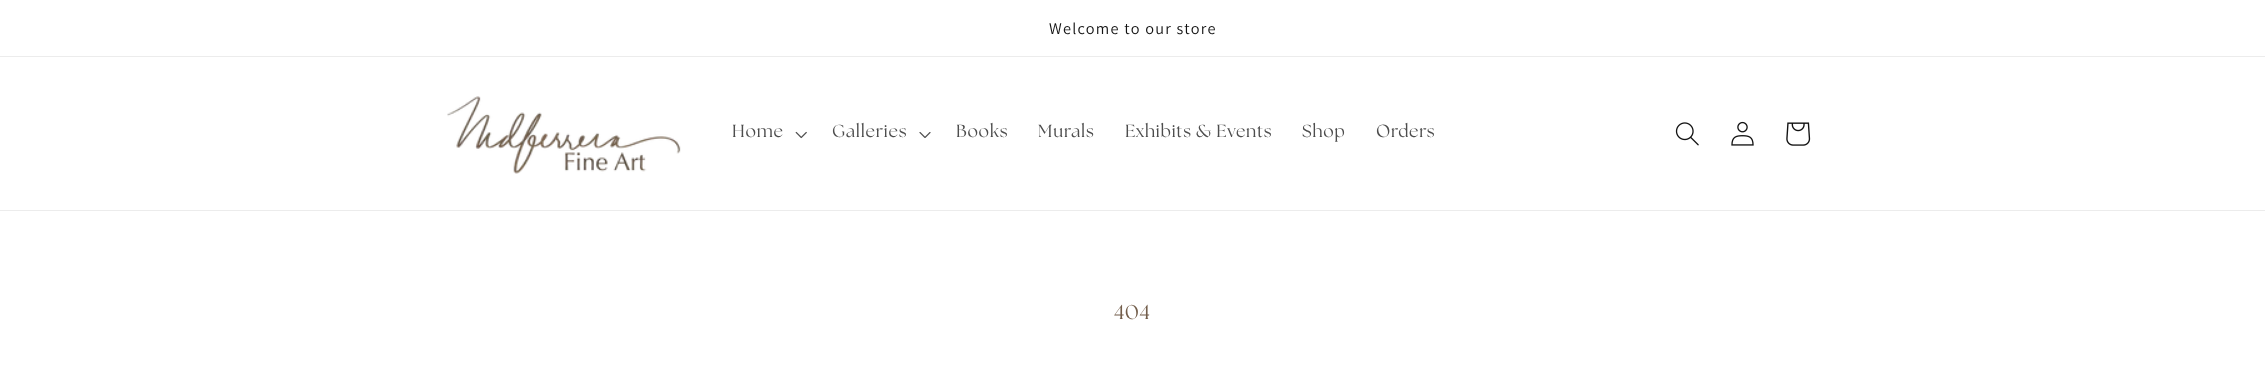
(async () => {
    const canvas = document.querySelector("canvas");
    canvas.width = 2265;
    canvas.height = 369;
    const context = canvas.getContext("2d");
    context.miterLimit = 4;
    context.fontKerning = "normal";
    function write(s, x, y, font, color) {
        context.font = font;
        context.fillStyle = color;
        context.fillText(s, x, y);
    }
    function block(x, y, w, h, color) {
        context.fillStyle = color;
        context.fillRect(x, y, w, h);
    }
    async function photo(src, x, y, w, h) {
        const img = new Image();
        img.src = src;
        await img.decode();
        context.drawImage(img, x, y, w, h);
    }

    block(0, 0, 2265, 369, "rgb(255, 255, 255)");
    block(0, 56, 2265, 1, "rgb(236, 236, 236)");
    context.letterSpacing = "1.25px";
    write("Welcome to our store", 1049, 34, "16.25px Assistant", "rgb(18, 18, 18)");
    block(0, 210, 2265, 1, "rgb(236, 236, 236)");
    await photo("media/1.png", 447, 96, 234, 78);
    context.letterSpacing = "0.75px";
    write("Home", 732, 137, "17.5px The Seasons", "rgb(77, 77, 77)");
    await photo("media/2.png", 795, 131, 12, 8);
    write("Galleries", 832, 137, "17.5px The Seasons", "rgb(77, 77, 77)");
    await photo("media/3.png", 919, 132, 12, 6);
    write("Books", 956, 137, "17.5px The Seasons", "rgb(77, 77, 77)");
    write("Murals", 1038, 137, "17.5px The Seasons", "rgb(77, 77, 77)");
    write("Exhibits & Events", 1125, 137, "17.5px The Seasons", "rgb(77, 77, 77)");
    write("Shop", 1302, 137, "17.5px The Seasons", "rgb(77, 77, 77)");
    write("Orders", 1376, 137, "17.5px The Seasons", "rgb(77, 77, 77)");
    await photo("media/4.png", 1675, 122, 24, 24);
    await photo("media/5.png", 1731, 121, 23, 25);
    await photo("media/6.png", 1786, 122, 25, 24);
    write("404", 1114, 319, "20px The Seasons", "rgb(114, 93, 74)");
})();
